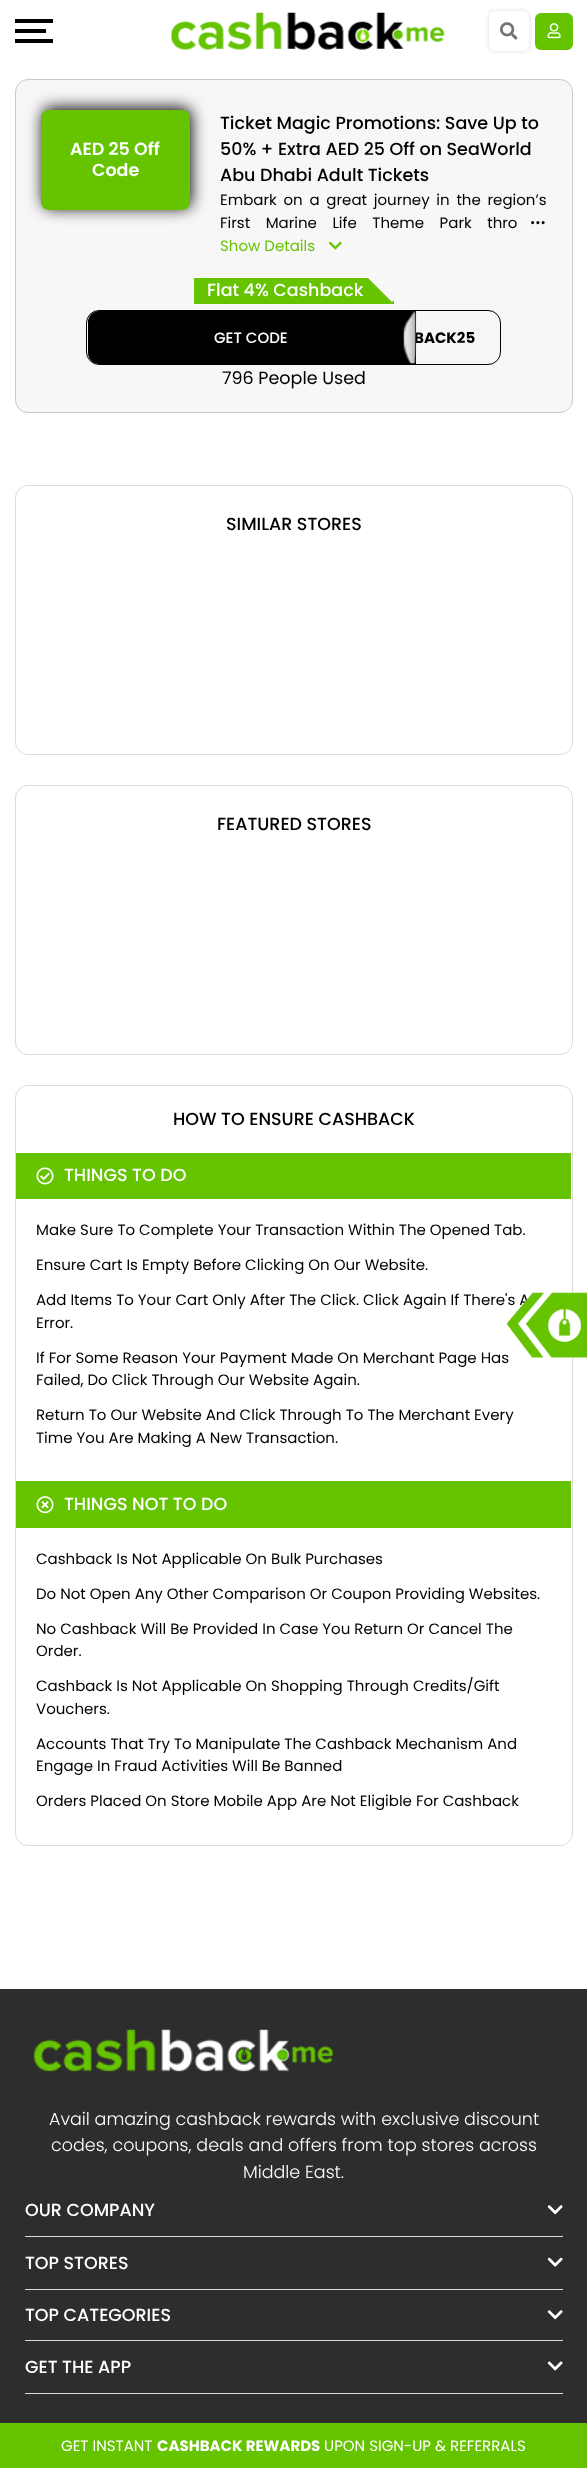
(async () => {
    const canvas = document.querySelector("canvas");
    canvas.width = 587;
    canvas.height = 2468;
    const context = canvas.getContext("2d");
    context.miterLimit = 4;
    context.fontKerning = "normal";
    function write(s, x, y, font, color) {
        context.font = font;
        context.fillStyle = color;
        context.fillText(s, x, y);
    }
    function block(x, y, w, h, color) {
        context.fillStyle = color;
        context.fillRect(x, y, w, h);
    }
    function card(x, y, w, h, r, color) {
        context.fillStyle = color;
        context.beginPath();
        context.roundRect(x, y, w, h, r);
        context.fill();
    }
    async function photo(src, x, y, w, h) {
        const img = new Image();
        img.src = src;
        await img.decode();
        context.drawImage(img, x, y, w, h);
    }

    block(0, 0, 587, 2468, "rgb(255, 255, 255)");
    block(15, 29, 31, 4, "rgb(0, 0, 0)");
    block(15, 19, 38, 4, "rgb(0, 0, 0)");
    block(15, 39, 38, 4, "rgb(0, 0, 0)");
    await photo("media/1.png", 171, 12, 274, 38);
    context.fillStyle = "rgb(218, 218, 218)";
    context.filter = "blur(2px)";
    context.beginPath();
    context.roundRect(489, 11, 40, 40, 6);
    context.fill();
    context.filter = "none";
    card(489, 11, 40, 40, 6, "rgb(255, 255, 255)");
    await photo("media/2.png", 500, 22, 18, 18);
    card(535, 13, 38, 37, 6, "rgb(101, 195, 0)");
    await photo("media/3.png", 547, 23, 14, 16);
    context.fillStyle = "rgb(247, 247, 247)";
    context.beginPath();
    context.roundRect(15.5, 79.5, 557, 333, 12.5);
    context.fill();
    context.strokeStyle = "rgb(201, 201, 201)";
    context.stroke();
    context.fillStyle = "rgb(0, 0, 0)";
    context.filter = "blur(8px)";
    context.beginPath();
    context.roundRect(43, 108, 148, 100, 8);
    context.fill();
    context.filter = "none";
    card(41, 110, 149, 100, 8, "rgb(101, 195, 0)");
    write("AED 25 Off", 70, 155, "600 17.5px Poppins", "rgb(255, 255, 255)");
    write("Code", 92, 176, "600 17.5px Poppins", "rgb(255, 255, 255)");
    write("Ticket Magic Promotions: Save Up to", 220, 129, "500 17.5px Poppins", "rgb(0, 0, 0)");
    write("50% + Extra AED 25 Off on SeaWorld", 220, 155, "500 17.5px Poppins", "rgb(0, 0, 0)");
    write("Abu Dhabi Adult Tickets", 220, 181, "500 17.5px Poppins", "rgb(0, 0, 0)");
    context.wordSpacing = "2.75px";
    write("Embark on a great journey in the region’s", 220, 205, "15px Poppins", "rgb(0, 0, 0)");
    context.wordSpacing = "11.5px";
    write("First Marine Life Theme Park thro", 220, 228, "15px Poppins", "rgb(0, 0, 0)");
    context.wordSpacing = "0px";
    write("...", 530, 224, "25px Poppins", "rgb(0, 0, 0)");
    write("Show Details", 220, 251, "15px Poppins", "rgb(101, 195, 0)");
    await photo("media/4.png", 329, 241, 13, 9);
    block(194, 278, 200, 26, "rgb(101, 195, 0)");
    write("Flat 4% Cashback", 207, 296, "500 17.5px Poppins", "rgb(255, 255, 255)");
    context.fillStyle = "rgb(247, 247, 247)";
    context.beginPath();
    context.moveTo(367.5, 277.5);
    context.lineTo(381.5, 263);
    context.lineTo(406.5, 288);
    context.lineTo(392, 302);
    context.closePath();
    context.fill();
    context.beginPath();
    context.roundRect(86.5, 310.5, 414, 54, 12.5);
    context.strokeStyle = "rgb(0, 0, 0)";
    context.stroke();
    context.save();
    context.beginPath();
    context.roundRect(88, 311, 412, 53, 11);
    context.clip();
    context.fillStyle = "rgb(0, 0, 0)";
    context.beginPath();
    context.roundRect(86, 311, 330, 53, [6, 0, 0, 6]);
    context.fill();
    context.restore();
    write("GET CODE", 214, 343, "500 15px Poppins", "rgb(255, 255, 255)");
    write("BACK25", 414, 343, "bold 15px Poppins", "rgb(0, 0, 0)");
    await photo("media/5.png", 403, 311, 14, 53);
    write("796 People Used", 222, 384, "17.5px Poppins", "rgb(0, 0, 0)");
    context.beginPath();
    context.roundRect(15.5, 485.5, 557, 269, 12.5);
    context.strokeStyle = "rgb(218, 218, 218)";
    context.stroke();
    write("SIMILAR STORES", 226, 530, "500 17.5px Poppins", "rgb(0, 0, 0)");
    context.beginPath();
    context.roundRect(15.5, 785.5, 557, 269, 12.5);
    context.stroke();
    write("FEATURED STORES", 217, 830, "500 17.5px Poppins", "rgb(0, 0, 0)");
    context.beginPath();
    context.roundRect(15.5, 1085.5, 557, 760, 12.5);
    context.stroke();
    write("HOW TO ENSURE CASHBACK", 173, 1125, "500 17.5px Poppins", "rgb(0, 0, 0)");
    block(16, 1153, 555, 46, "rgb(101, 195, 0)");
    await photo("media/6.png", 36, 1167, 18, 18);
    write("THINGS TO DO", 64, 1181, "500 17.5px Poppins", "rgb(255, 255, 255)");
    write("Make Sure To Complete Your Transaction Within The Opened Tab.", 36, 1235, "15px Poppins", "rgb(0, 0, 0)");
    write("Ensure Cart Is Empty Before Clicking On Our Website.", 36, 1270, "15px Poppins", "rgb(0, 0, 0)");
    write("Add Items To Your Cart Only After The Click. Click Again If There's A", 36, 1305, "15px Poppins", "rgb(0, 0, 0)");
    write("Error.", 36, 1328, "15px Poppins", "rgb(0, 0, 0)");
    write("If For Some Reason Your Payment Made On Merchant Page Has", 36, 1363, "15px Poppins", "rgb(0, 0, 0)");
    write("Failed, Do Click Through Our Website Again.", 36, 1385, "15px Poppins", "rgb(0, 0, 0)");
    write("Return To Our Website And Click Through To The Merchant Every", 36, 1420, "15px Poppins", "rgb(0, 0, 0)");
    write("Time You Are Making A New Transaction.", 36, 1443, "15px Poppins", "rgb(0, 0, 0)");
    block(16, 1481, 555, 47, "rgb(101, 195, 0)");
    await photo("media/7.png", 36, 1496, 18, 18);
    write("THINGS NOT TO DO", 64, 1510, "500 17.5px Poppins", "rgb(255, 255, 255)");
    write("Cashback Is Not Applicable On Bulk Purchases", 36, 1564, "15px Poppins", "rgb(0, 0, 0)");
    write("Do Not Open Any Other Comparison Or Coupon Providing Websites.", 36, 1599, "15px Poppins", "rgb(0, 0, 0)");
    write("No Cashback Will Be Provided In Case You Return Or Cancel The", 36, 1634, "15px Poppins", "rgb(0, 0, 0)");
    write("Order.", 36, 1656, "15px Poppins", "rgb(0, 0, 0)");
    write("Cashback Is Not Applicable On Shopping Through Credits/Gift", 36, 1691, "15px Poppins", "rgb(0, 0, 0)");
    write("Vouchers.", 36, 1714, "15px Poppins", "rgb(0, 0, 0)");
    write("Accounts That Try To Manipulate The Cashback Mechanism And", 36, 1749, "15px Poppins", "rgb(0, 0, 0)");
    write("Engage In Fraud Activities Will Be Banned", 36, 1771, "15px Poppins", "rgb(0, 0, 0)");
    write("Orders Placed On Store Mobile App Are Not Eligible For Cashback", 36, 1806, "15px Poppins", "rgb(0, 0, 0)");
    await photo("media/8.png", 506, 1292, 81, 66);
    block(0, 1989, 587, 434, "rgb(46, 45, 45)");
    await photo("media/9.png", 33, 2029, 300, 43);
    write("Avail amazing cashback rewards with exclusive discount", 49, 2125, "300 17.5px Poppins", "rgb(255, 255, 255)");
    write("codes, coupons, deals and offers from top stores across", 51, 2151, "300 17.5px Poppins", "rgb(255, 255, 255)");
    write("Middle East.", 243, 2178, "300 17.5px Poppins", "rgb(255, 255, 255)");
    block(25, 2236, 538, 1, "rgb(218, 218, 218)");
    write("OUR COMPANY", 25, 2216, "500 17.5px Poppins", "rgb(255, 255, 255)");
    await photo("media/10.png", 547, 2205, 16, 10);
    block(25, 2289, 538, 1, "rgb(218, 218, 218)");
    write("TOP STORES", 25, 2269, "500 17.5px Poppins", "rgb(255, 255, 255)");
    await photo("media/11.png", 547, 2257, 16, 10);
    block(25, 2340, 538, 1, "rgb(218, 218, 218)");
    write("TOP CATEGORIES", 25, 2321, "500 17.5px Poppins", "rgb(255, 255, 255)");
    await photo("media/10.png", 547, 2310, 16, 10);
    block(25, 2393, 538, 1, "rgb(218, 218, 218)");
    write("GET THE APP", 25, 2373, "500 17.5px Poppins", "rgb(255, 255, 255)");
    await photo("media/12.png", 547, 2361, 16, 10);
    block(0, 2423, 587, 45, "rgb(101, 195, 0)");
    write("GET INSTANT", 61, 2451, "15px Poppins", "rgb(255, 255, 255)");
    write("CASHBACK REWARDS", 157, 2451, "bold 15px Poppins", "rgb(255, 255, 255)");
    write("UPON SIGN-UP & REFERRALS", 324, 2451, "15px Poppins", "rgb(255, 255, 255)");
})();
